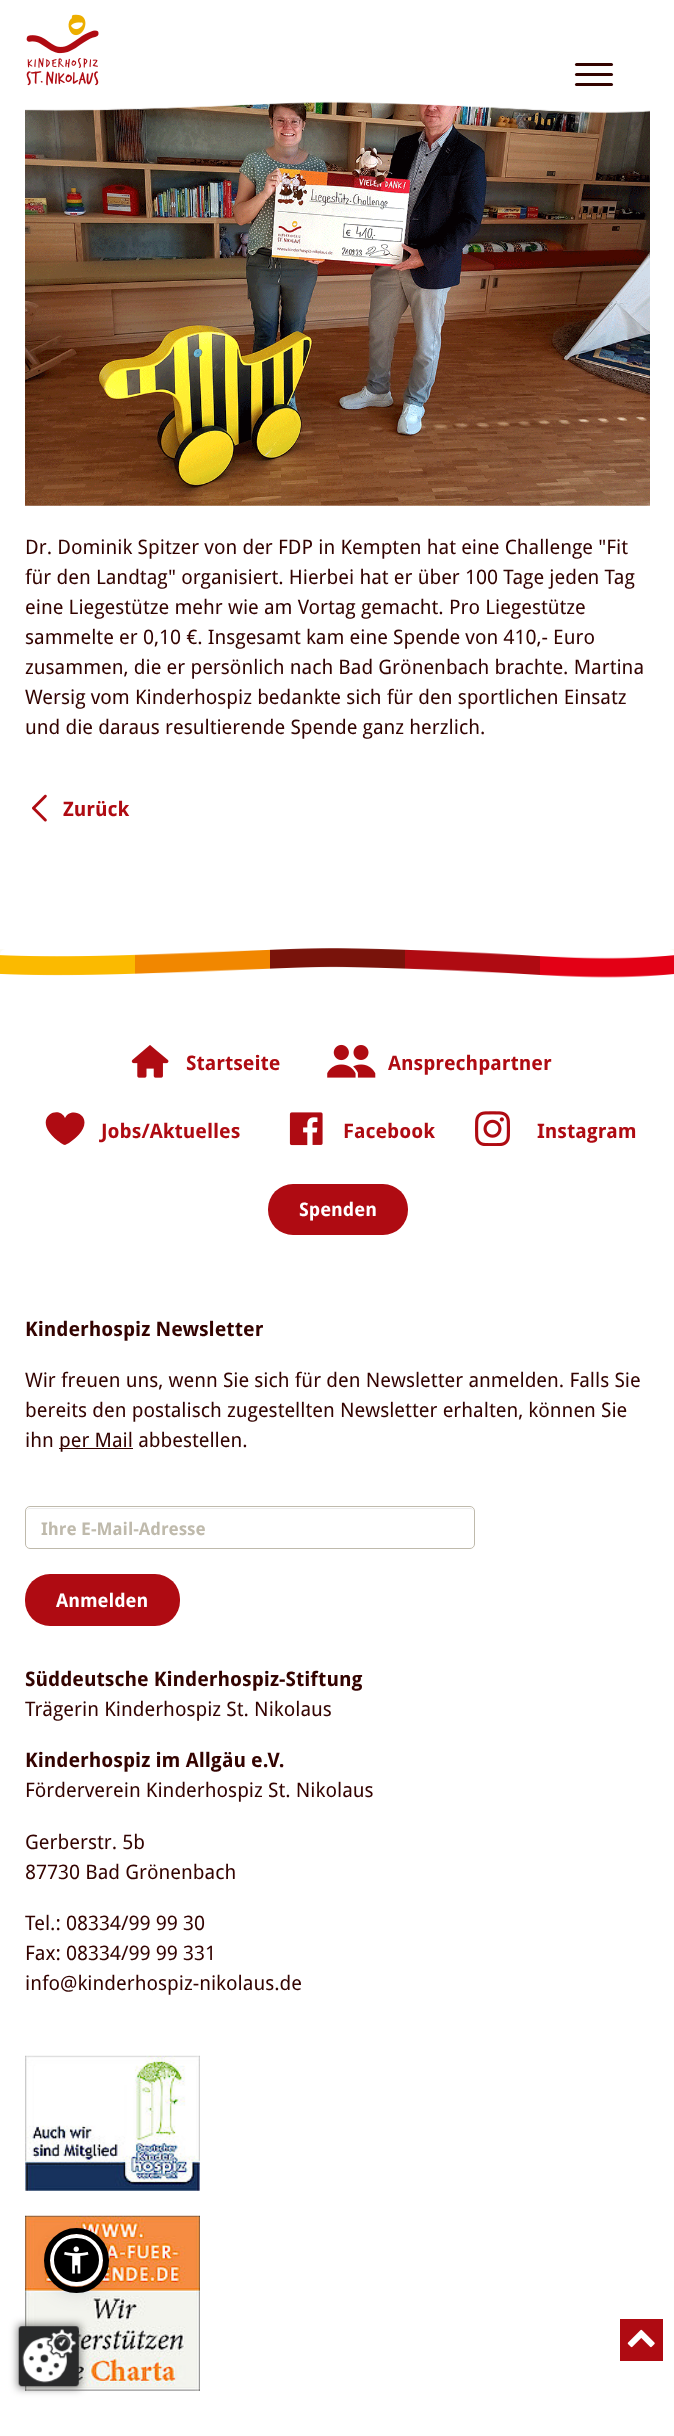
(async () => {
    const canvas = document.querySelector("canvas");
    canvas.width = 674;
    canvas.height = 2436;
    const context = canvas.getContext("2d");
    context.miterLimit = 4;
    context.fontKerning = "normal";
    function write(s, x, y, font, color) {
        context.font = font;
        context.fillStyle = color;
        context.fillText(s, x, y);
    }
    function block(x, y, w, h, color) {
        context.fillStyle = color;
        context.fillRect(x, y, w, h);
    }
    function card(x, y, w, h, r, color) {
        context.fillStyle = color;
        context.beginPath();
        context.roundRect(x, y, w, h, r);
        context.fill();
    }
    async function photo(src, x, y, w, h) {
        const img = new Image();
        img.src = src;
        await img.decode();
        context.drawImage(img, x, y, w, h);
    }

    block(0, 0, 674, 2436, "rgb(252, 250, 242)");
    block(0, 0, 674, 949, "rgb(255, 255, 255)");
    await photo("media/1.png", 26, 14, 73, 72);
    card(575, 63, 38, 3, 1.5, "rgb(51, 3, 0)");
    card(575, 73, 38, 3, 1.5, "rgb(51, 3, 0)");
    card(575, 83, 38, 3, 1.5, "rgb(51, 3, 0)");
    await photo("media/3.png", 25, 101, 625, 405);
    await photo("media/2.png", 25, 100, 625, 13);
    write("Dr. Dominik Spitzer von der FDP in Kempten hat eine Challenge \"Fit", 25, 554, "20px Droid Sans", "rgb(51, 3, 0)");
    write("für den Landtag\" organisiert. Hierbei hat er über 100 Tage jeden Tag", 25, 584, "20px Droid Sans", "rgb(51, 3, 0)");
    write("eine Liegestütze mehr wie am Vortag gemacht. Pro Liegestütze", 25, 614, "20px Droid Sans", "rgb(51, 3, 0)");
    write("sammelte er 0,10 €. Insgesamt kam eine Spende von 410,- Euro", 25, 644, "20px Droid Sans", "rgb(51, 3, 0)");
    write("zusammen, die er persönlich nach Bad Grönenbach brachte. Martina", 25, 674, "20px Droid Sans", "rgb(51, 3, 0)");
    write("Wersig vom Kinderhospiz bedankte sich für den sportlichen Einsatz", 25, 704, "20px Droid Sans", "rgb(51, 3, 0)");
    write("und die daraus resultierende Spende ganz herzlich.", 25, 734, "20px Droid Sans", "rgb(51, 3, 0)");
    await photo("media/4.png", 32, 794, 15, 28);
    write("Zurück", 63, 816, "bold 20px Droid Sans", "rgb(175, 11, 18)");
    card(0, 949, 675, 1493, 6, "rgb(255, 255, 255)");
    await photo("media/13.png", 25, 2215, 175, 176);
    context.fillStyle = "rgba(93, 100, 148, 0.2)";
    context.filter = "blur(2.5px)";
    context.beginPath();
    context.roundRect(50, 2236, 53, 53, 26.5);
    context.fill();
    context.filter = "none";
    context.fillStyle = "rgba(37, 44, 97, 0.15)";
    context.filter = "blur(9.5px)";
    context.beginPath();
    context.roundRect(50, 2240, 53, 53, 26.5);
    context.fill();
    context.filter = "none";
    context.fillStyle = "rgb(0, 0, 0)";
    context.beginPath();
    context.roundRect(52, 2236, 49, 48, 24);
    context.fill();
    context.strokeStyle = "rgb(255, 255, 255)";
    context.lineWidth = 4;
    context.stroke();
    context.beginPath();
    context.arc(76.5, 2260.5, 29.5, 0, Math.PI * 2);
    context.strokeStyle = "rgb(0, 0, 0)";
    context.lineWidth = 6;
    context.stroke();
    await photo("media/5.png", 64, 2246, 25, 28);
    block(620, 2319, 43, 42, "rgb(175, 11, 18)");
    await photo("media/6.png", 627, 2329, 28, 19);
    await photo("media/7.png", 0, 948, 674, 30);
    await photo("media/8.png", 131, 1045, 38, 33);
    write("Startseite", 186, 1070, "bold 20px Droid Sans", "rgb(175, 11, 18)");
    await photo("media/9.png", 327, 1044, 49, 34);
    write("Ansprechpartner", 388, 1070, "bold 20px Droid Sans", "rgb(175, 11, 18)");
    context.beginPath();
    context.moveTo(84.5, 1122.5);
    context.bezierCurveTo(84.5, 1112, 69.5, 1108.5, 65, 1118);
    context.bezierCurveTo(58, 1103.5, 30, 1119, 58, 1141);
    context.bezierCurveTo(59, 1141.5, 63, 1145, 65, 1145);
    context.lineTo(69, 1143);
    context.bezierCurveTo(75, 1139, 84.5, 1131, 84.5, 1122.5);
    context.closePath();
    context.fill();
    write("Jobs/Aktuelles", 101, 1138, "bold 20px Droid Sans", "rgb(175, 11, 18)");
    await photo("media/10.png", 289, 1112, 34, 34);
    write("Facebook", 343, 1138, "bold 20px Droid Sans", "rgb(175, 11, 18)");
    await photo("media/11.png", 475, 1111, 35, 35);
    write("Instagram", 537, 1138, "bold 20px Droid Sans", "rgb(175, 11, 18)");
    card(268, 1184, 140, 51, 25, "rgb(175, 11, 18)");
    write("Spenden", 299, 1216, "bold 18.75px Droid Sans", "rgb(255, 255, 255)");
    write("Kinderhospiz Newsletter", 25, 1336, "bold 20px Droid Sans", "rgb(51, 3, 0)");
    write("Wir freuen uns, wenn Sie sich für den Newsletter anmelden. Falls Sie", 25, 1387, "20px Droid Sans", "rgb(51, 3, 0)");
    write("bereits den postalisch zugestellten Newsletter erhalten, können Sie", 25, 1417, "20px Droid Sans", "rgb(51, 3, 0)");
    write("ihn", 25, 1447, "20px Droid Sans", "rgb(51, 3, 0)");
    block(59, 1448, 74, 1, "rgb(51, 3, 0)");
    write("per Mail abbestellen.", 59, 1447, "20px Droid Sans", "rgb(51, 3, 0)");
    context.fillStyle = "rgb(236, 236, 236)";
    context.beginPath();
    context.moveTo(30, 1509);
    context.lineTo(470, 1509);
    context.bezierCurveTo(472, 1509, 474, 1510, 474, 1512);
    context.bezierCurveTo(474, 1510, 472, 1508, 470, 1508);
    context.lineTo(30, 1508);
    context.bezierCurveTo(28, 1508, 26, 1510, 26, 1512);
    context.bezierCurveTo(26, 1510, 28, 1509, 30, 1509);
    context.closePath();
    context.fill();
    context.beginPath();
    context.roundRect(25.5, 1506.5, 449, 42, 4.5);
    context.strokeStyle = "rgb(191, 186, 172)";
    context.lineWidth = 1;
    context.stroke();
    write("Ihre E-Mail-Adresse", 41, 1535, "bold 17.5px Droid Sans", "rgb(191, 186, 172)");
    card(25, 1574, 155, 52, 25, "rgb(175, 11, 18)");
    write("Anmelden", 56, 1607, "bold 18.75px Droid Sans", "rgb(255, 255, 255)");
    write("Süddeutsche Kinderhospiz-Stiftung", 25, 1686, "bold 20px Droid Sans", "rgb(51, 3, 0)");
    write("Trägerin Kinderhospiz St. Nikolaus", 25, 1716, "20px Droid Sans", "rgb(51, 3, 0)");
    write("Kinderhospiz im Allgäu e.V.", 25, 1767, "bold 20px Droid Sans", "rgb(51, 3, 0)");
    write("Förderverein Kinderhospiz St. Nikolaus", 25, 1797, "20px Droid Sans", "rgb(51, 3, 0)");
    write("Gerberstr. 5b", 25, 1849, "20px Droid Sans", "rgb(51, 3, 0)");
    write("87730 Bad Grönenbach", 25, 1879, "20px Droid Sans", "rgb(51, 3, 0)");
    write("Tel.: 08334/99 99 30", 25, 1930, "20px Droid Sans", "rgb(51, 3, 0)");
    write("Fax: 08334/99 99 331", 25, 1960, "20px Droid Sans", "rgb(51, 3, 0)");
    write("info@kinderhospiz-nikolaus.de", 25, 1990, "20px Droid Sans", "rgb(51, 3, 0)");
    await photo("media/12.png", 25, 2055, 175, 136);
    context.fillStyle = "rgba(0, 0, 0, 0.5)";
    context.filter = "blur(4px)";
    context.beginPath();
    context.rect(18, 2325, 62, 63);
    context.fill();
    context.filter = "none";
    await photo("media/14.png", 18, 2326, 61, 61);
})();
